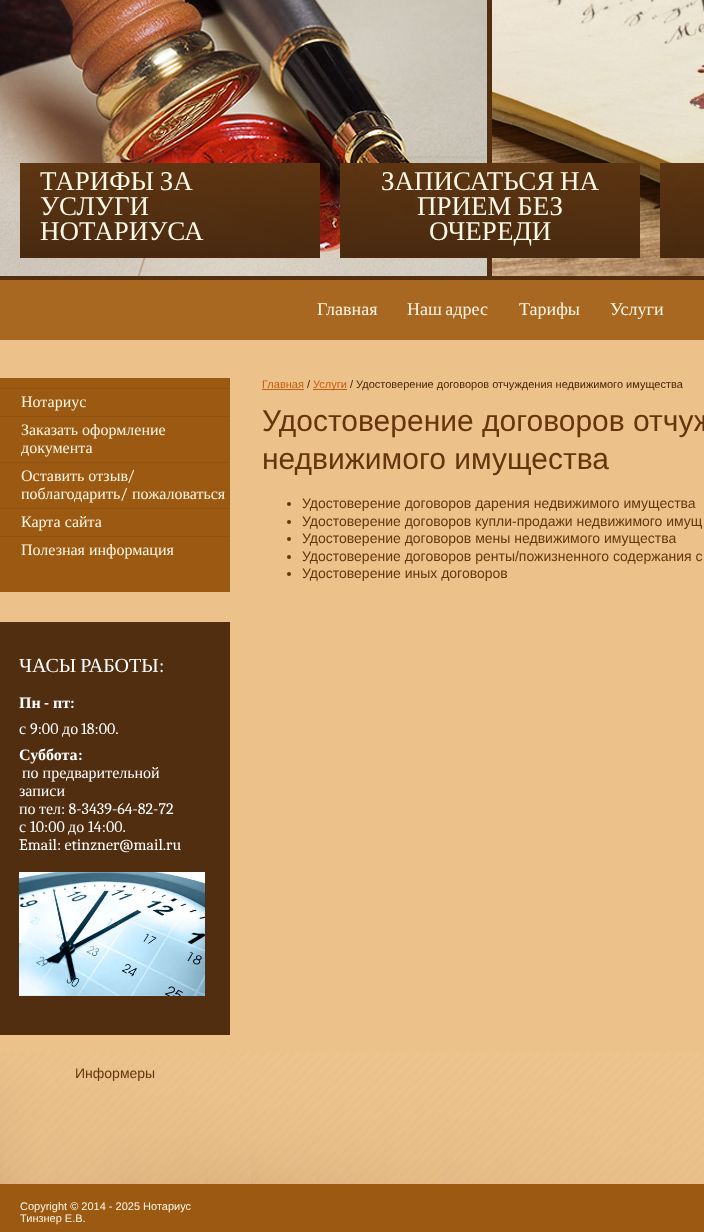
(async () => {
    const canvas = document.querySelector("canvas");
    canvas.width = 704;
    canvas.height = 1232;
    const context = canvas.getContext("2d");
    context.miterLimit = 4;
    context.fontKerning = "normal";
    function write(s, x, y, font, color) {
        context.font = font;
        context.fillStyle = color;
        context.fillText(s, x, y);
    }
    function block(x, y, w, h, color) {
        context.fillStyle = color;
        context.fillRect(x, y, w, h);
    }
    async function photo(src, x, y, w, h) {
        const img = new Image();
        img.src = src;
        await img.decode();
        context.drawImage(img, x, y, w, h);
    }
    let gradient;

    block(0, 0, 704, 1232, "rgb(236, 193, 138)");
    await photo("media/1.png", 0, 0, 704, 280);
    block(20, 163, 300, 95, "rgba(93, 53, 18, 0.9)");
    gradient = context.createLinearGradient(170, 163, 170, 258);
    gradient.addColorStop(0, "rgba(93, 53, 18, 0.9)");
    gradient.addColorStop(1, "rgba(69, 39, 14, 0.9)");
    context.fillStyle = gradient;
    context.fillRect(20, 163, 300, 95);
    context.wordSpacing = "-1px";
    write("ТАРИФЫ ЗА", 40, 190, "27px Liberation Serif", "rgb(252, 248, 230)");
    context.wordSpacing = "0px";
    write("УСЛУГИ", 40, 215, "27px Liberation Serif", "rgb(252, 248, 230)");
    write("НОТАРИУСА", 40, 240, "27px Liberation Serif", "rgb(252, 248, 230)");
    block(340, 163, 300, 95, "rgba(93, 53, 18, 0.9)");
    gradient = context.createLinearGradient(490, 163, 490, 258);
    gradient.addColorStop(0, "rgba(93, 53, 18, 0.9)");
    gradient.addColorStop(1, "rgba(69, 39, 14, 0.9)");
    context.fillStyle = gradient;
    context.fillRect(340, 163, 300, 95);
    context.wordSpacing = "-1px";
    write("ЗАПИСАТЬСЯ НА", 381, 190, "27px Liberation Serif", "rgb(252, 248, 230)");
    write("ПРИЕМ БЕЗ", 417, 215, "27px Liberation Serif", "rgb(252, 248, 230)");
    context.wordSpacing = "0px";
    write("ОЧЕРЕДИ", 429, 240, "27px Liberation Serif", "rgb(252, 248, 230)");
    block(660, 163, 44, 95, "rgba(93, 53, 18, 0.9)");
    gradient = context.createLinearGradient(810, 163, 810, 258);
    gradient.addColorStop(0, "rgba(93, 53, 18, 0.9)");
    gradient.addColorStop(1, "rgba(69, 39, 14, 0.9)");
    context.fillStyle = gradient;
    context.fillRect(660, 163, 44, 95);
    block(0, 280, 704, 60, "rgb(168, 104, 34)");
    write("Главная", 317, 315, "18px Liberation Serif", "rgb(252, 248, 230)");
    context.wordSpacing = "-1px";
    write("Наш адрес", 407, 315, "18px Liberation Serif", "rgb(252, 248, 230)");
    context.wordSpacing = "0px";
    write("Тарифы", 519, 315, "18px Liberation Serif", "rgb(252, 248, 230)");
    write("Услуги", 610, 315, "18px Liberation Serif", "rgb(252, 248, 230)");
    block(0, 378, 230, 214, "rgb(156, 89, 17)");
    block(0, 388, 230, 1, "rgb(147, 83, 16)");
    write("Нотариус", 21, 407, "16px Liberation Serif", "rgb(252, 248, 230)");
    block(0, 416, 230, 1, "rgb(147, 83, 16)");
    write("Заказать оформление", 21, 435, "16px Liberation Serif", "rgb(252, 248, 230)");
    write("документа", 21, 453, "16px Liberation Serif", "rgb(252, 248, 230)");
    block(0, 462, 230, 1, "rgb(147, 83, 16)");
    write("Оставить отзыв", 21, 481, "16px Liberation Serif", "rgb(252, 248, 230)");
    write("/", 127, 481, "16px Caladea", "rgb(252, 248, 230)");
    write("поблагодарить", 21, 499, "16px Liberation Serif", "rgb(252, 248, 230)");
    write("/", 120, 499, "16px Caladea", "rgb(252, 248, 230)");
    write("пожаловаться", 132, 499, "16px Liberation Serif", "rgb(252, 248, 230)");
    block(0, 508, 230, 1, "rgb(147, 83, 16)");
    write("Карта сайта", 21, 527, "16px Liberation Serif", "rgb(252, 248, 230)");
    block(0, 536, 230, 1, "rgb(147, 83, 16)");
    write("Полезная информация", 21, 555, "16px Liberation Serif", "rgb(252, 248, 230)");
    block(0, 622, 230, 413, "rgb(81, 46, 16)");
    context.wordSpacing = "-1px";
    write("ЧАСЫ РАБОТЫ", 19, 672, "20px Liberation Serif", "rgb(255, 255, 255)");
    context.wordSpacing = "0px";
    write(":", 159, 672, "20px Caladea", "rgb(255, 255, 255)");
    write("Пн", 19, 708, "bold 16px Liberation Serif", "rgb(255, 255, 255)");
    write("-", 44, 708, "bold 16px Caladea", "rgb(255, 255, 255)");
    write("пт", 53, 708, "bold 16px Liberation Serif", "rgb(255, 255, 255)");
    write(":", 70, 708, "bold 16px Caladea", "rgb(255, 255, 255)");
    write("с", 19, 734, "16px Liberation Serif", "rgb(255, 255, 255)");
    write("9:00", 30, 734, "16px Caladea", "rgb(255, 255, 255)");
    write("до", 62, 734, "16px Liberation Serif", "rgb(255, 255, 255)");
    write("18:00.", 81, 734, "16px Caladea", "rgb(255, 255, 255)");
    write("Суббота", 19, 760, "bold 16px Liberation Serif", "rgb(255, 255, 255)");
    write(":", 78, 760, "bold 16px Caladea", "rgb(255, 255, 255)");
    write("по предварительной", 22, 778, "16px Liberation Serif", "rgb(255, 255, 255)");
    write("записи", 19, 796, "16px Liberation Serif", "rgb(255, 255, 255)");
    write("по", 19, 814, "16px Liberation Serif", "rgb(255, 255, 255)");
    write("тел", 39, 814, "16px Liberation Serif", "rgb(255, 255, 255)");
    write(": 8-3439-64-82-72", 61, 814, "16px Caladea", "rgb(255, 255, 255)");
    write("с", 19, 832, "16px Liberation Serif", "rgb(255, 255, 255)");
    write("10:00", 30, 832, "16px Caladea", "rgb(255, 255, 255)");
    write("до", 68, 832, "16px Liberation Serif", "rgb(255, 255, 255)");
    write("14:00.", 88, 832, "16px Caladea", "rgb(255, 255, 255)");
    write("Email: etinzner@mail.ru", 19, 850, "16px Caladea", "rgb(255, 255, 255)");
    await photo("media/2.png", 19, 872, 186, 124);
    await photo("media/3.png", 0, 1052, 704, 180);
    write("Информеры", 75, 1078, "14px Liberation Sans", "rgb(103, 53, 12)");
    write("Главная", 262, 388, "11px Liberation Sans", "rgb(194, 94, 14)");
    block(262, 389, 42, 1, "rgb(194, 94, 14)");
    write("/", 307, 388, "11px Liberation Sans", "rgb(69, 38, 1)");
    block(313, 389, 34, 1, "rgb(194, 94, 14)");
    write("Услуги", 313, 388, "11px Liberation Sans", "rgb(194, 94, 14)");
    write("/ Удостоверение договоров отчуждения недвижимого имущества", 350, 388, "11px Liberation Sans", "rgb(69, 38, 1)");
    write("Удостоверение договоров отчуж", 262, 431, "30px Liberation Sans", "rgb(103, 53, 12)");
    write("недвижимого имущества", 262, 469, "30px Liberation Sans", "rgb(103, 53, 12)");
    context.beginPath();
    context.arc(289, 504, 2, 0, Math.PI * 2);
    context.fill();
    write("Удостоверение договоров дарения недвижимого имущества", 302, 508, "14px Liberation Sans", "rgb(103, 53, 12)");
    context.beginPath();
    context.arc(289, 522, 2, 0, Math.PI * 2);
    context.fill();
    write("Удостоверение договоров купли-продажи недвижимого имущ", 302, 526, "14px Liberation Sans", "rgb(103, 53, 12)");
    context.beginPath();
    context.arc(289, 539, 2, 0, Math.PI * 2);
    context.fill();
    write("Удостоверение договоров мены недвижимого имущества", 302, 543, "14px Liberation Sans", "rgb(103, 53, 12)");
    context.beginPath();
    context.arc(289, 557, 2, 0, Math.PI * 2);
    context.fill();
    write("Удостоверение договоров ренты/пожизненного содержания с", 302, 561, "14px Liberation Sans", "rgb(103, 53, 12)");
    context.beginPath();
    context.arc(289, 574, 2, 0, Math.PI * 2);
    context.fill();
    write("Удостоверение иных договоров", 302, 578, "14px Liberation Sans", "rgb(103, 53, 12)");
    write("Copyright © 2014 - 2025 Нотариус", 20, 1210, "11px Liberation Sans", "rgb(252, 248, 230)");
    write("Тинзнер Е.В.", 20, 1222, "11px Liberation Sans", "rgb(252, 248, 230)");
})();
